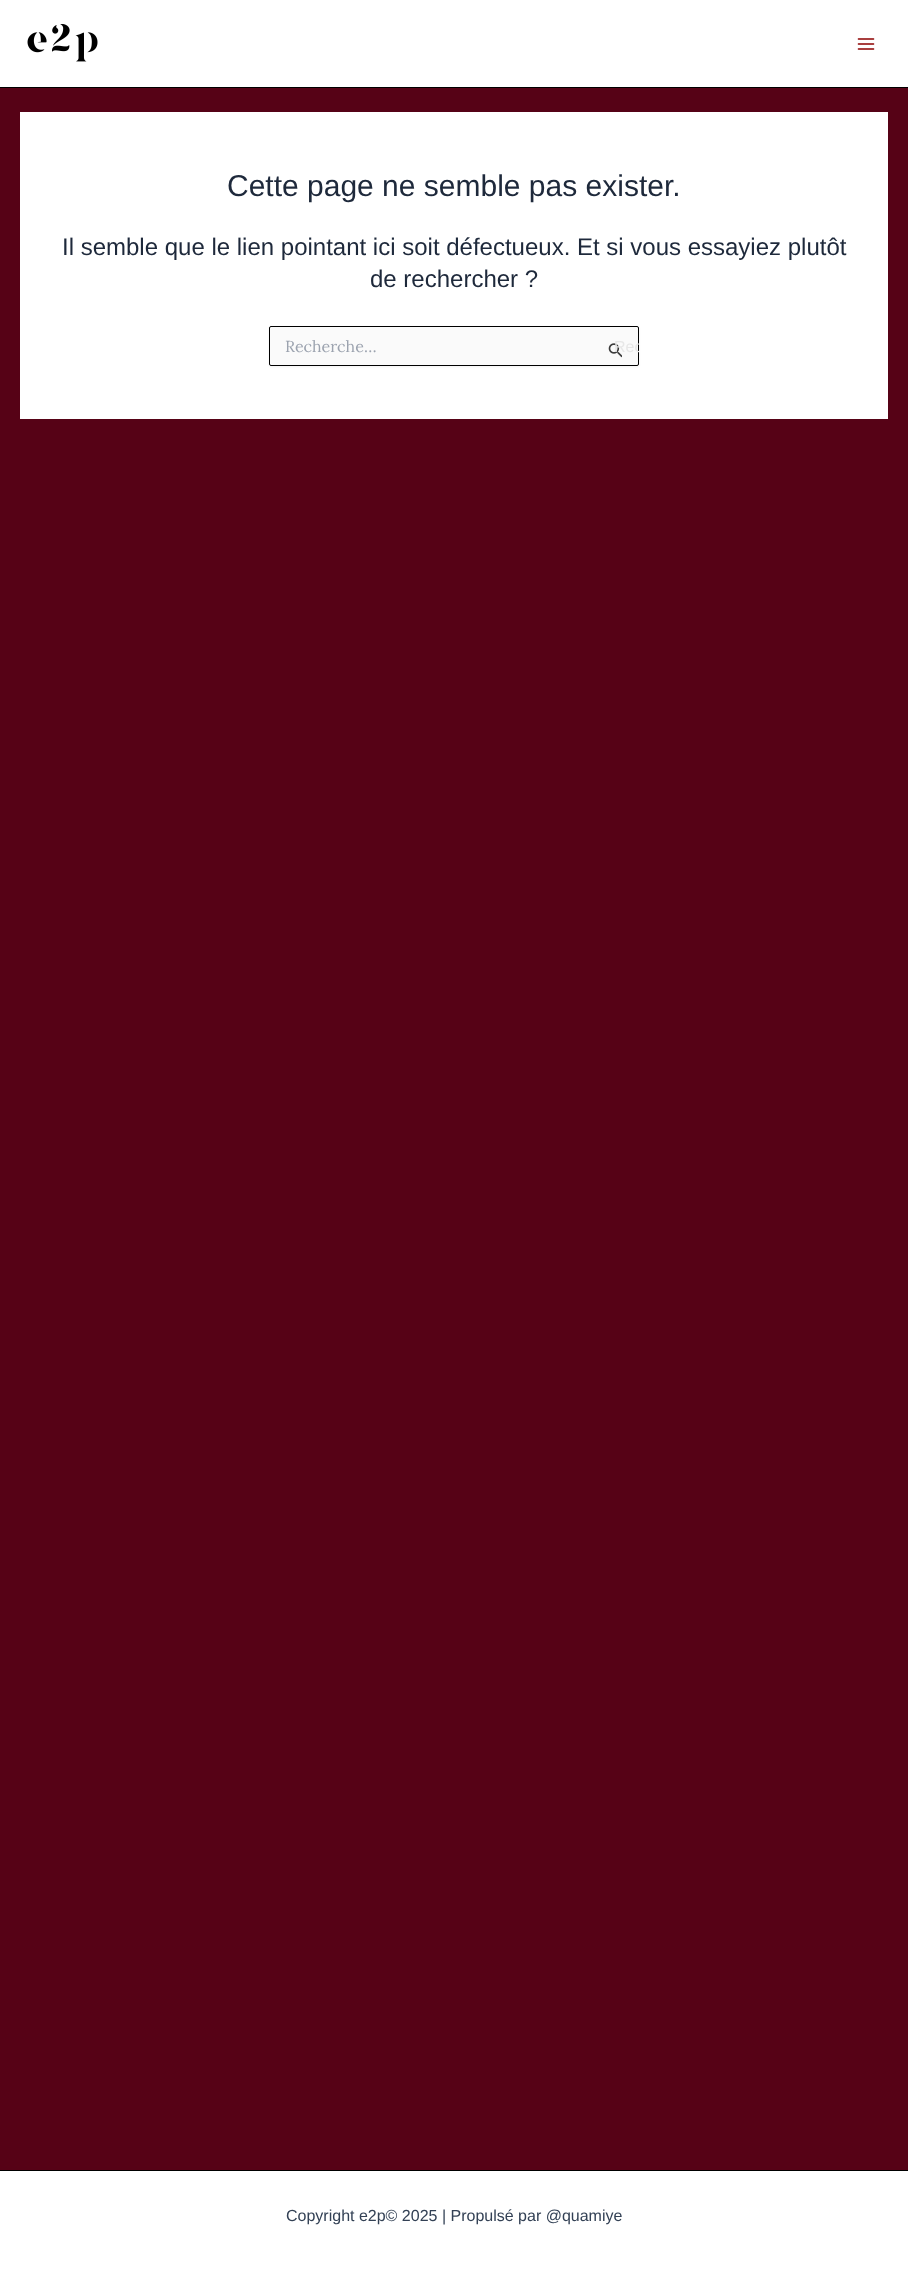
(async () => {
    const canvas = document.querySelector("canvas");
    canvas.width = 908;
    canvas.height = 2271;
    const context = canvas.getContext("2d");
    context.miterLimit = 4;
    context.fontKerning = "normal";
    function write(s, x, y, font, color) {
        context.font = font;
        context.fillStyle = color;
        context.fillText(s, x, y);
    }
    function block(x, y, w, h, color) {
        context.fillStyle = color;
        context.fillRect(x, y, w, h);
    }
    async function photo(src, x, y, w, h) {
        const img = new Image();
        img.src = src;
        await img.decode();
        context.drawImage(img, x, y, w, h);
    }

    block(0, 0, 908, 2271, "rgb(86, 2, 22)");
    block(0, 0, 908, 87, "rgb(255, 255, 255)");
    block(0, 87, 908, 1, "rgb(0, 0, 0)");
    await photo("media/1.png", 27, 24, 71, 38);
    await photo("media/2.png", 857, 38, 18, 12);
    block(20, 112, 868, 307, "rgb(255, 255, 255)");
    write("Cette page ne semble pas exister.", 227, 196, "30px Liberation Sans", "rgb(30, 41, 59)");
    write("Il semble que le lien pointant ici soit défectueux. Et si vous essayiez plutôt", 62, 255, "24px Liberation Sans", "rgb(30, 41, 59)");
    write("de rechercher ?", 370, 287, "24px Liberation Sans", "rgb(30, 41, 59)");
    context.fillStyle = "rgba(0, 0, 0, 0.05)";
    context.filter = "blur(1px)";
    context.beginPath();
    context.roundRect(269, 327, 370, 40, 2);
    context.fill();
    context.filter = "none";
    context.fillStyle = "rgb(250, 250, 250)";
    context.beginPath();
    context.roundRect(269.5, 326.5, 369, 39, 1.5);
    context.fill();
    context.strokeStyle = "rgb(0, 0, 0)";
    context.stroke();
    write("Recherche…", 285, 352, "16px Lora", "rgb(156, 163, 175)");
    await photo("media/3.png", 608, 343, 14, 15);
    context.save();
    context.beginPath();
    context.roundRect(594, 326, 45, 42, 2);
    context.clip();
    write("Rec", 614, 352, "16px Liberation Sans", "rgb(231, 231, 231)");
    context.restore();
    block(0, 2171, 908, 100, "rgb(255, 255, 255)");
    block(0, 2170, 908, 1, "rgb(0, 0, 0)");
    write("Copyright e2p© 2025 | Propulsé par @quamiye", 286, 2221, "16px Liberation Sans", "rgb(51, 65, 85)");
})();
